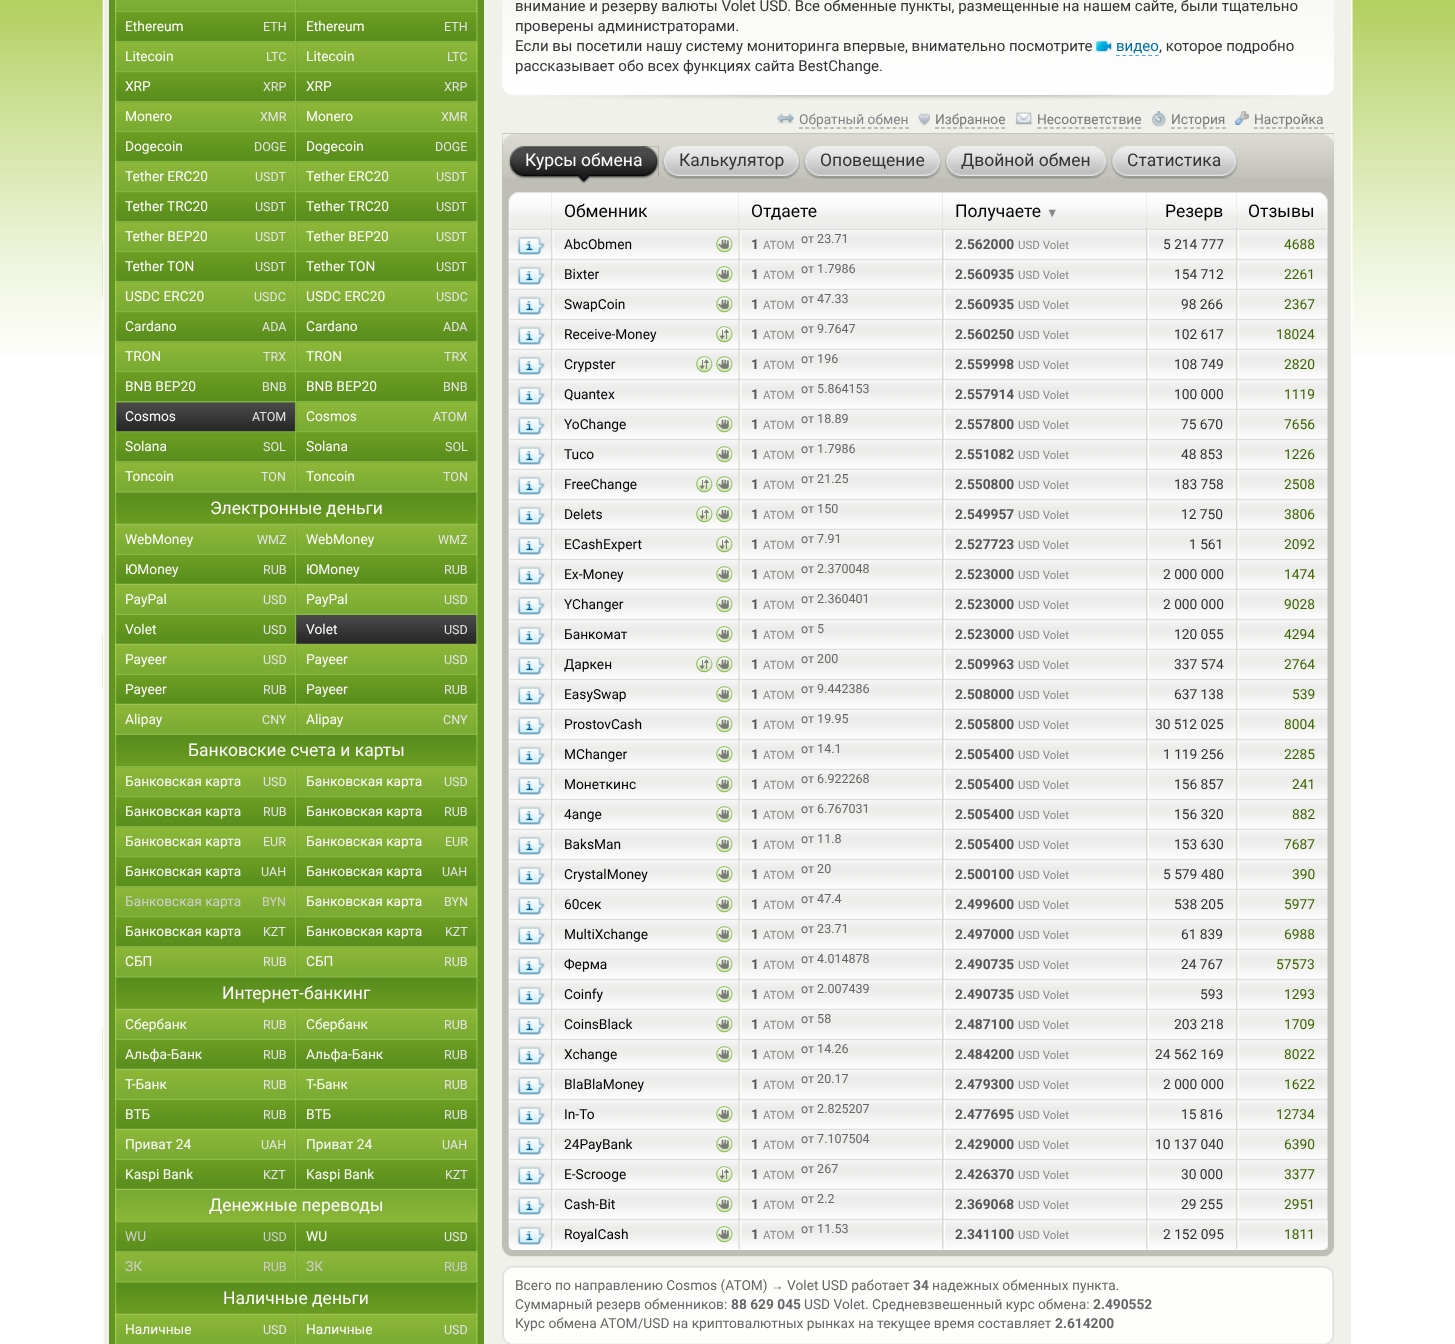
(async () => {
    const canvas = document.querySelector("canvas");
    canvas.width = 1455;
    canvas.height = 1344;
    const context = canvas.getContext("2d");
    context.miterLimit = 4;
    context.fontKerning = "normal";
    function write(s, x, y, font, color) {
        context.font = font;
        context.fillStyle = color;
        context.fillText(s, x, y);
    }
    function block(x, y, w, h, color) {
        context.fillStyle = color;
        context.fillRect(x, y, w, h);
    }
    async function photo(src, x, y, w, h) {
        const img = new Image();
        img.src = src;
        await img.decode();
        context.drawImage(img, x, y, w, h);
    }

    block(0, 0, 1455, 1344, "rgb(255, 255, 255)");
    await photo("media/1.png", 0, 0, 1455, 356);
    await photo("media/2.png", 102, 0, 1251, 1344);
    block(109, 0, 375, 1344, "rgb(97, 148, 32)");
    await photo("media/3.png", 115, 0, 182, 13);
    await photo("media/4.png", 296, 0, 182, 13);
    await photo("media/5.png", 115, 12, 182, 31);
    write("Ethereum", 125, 31, "13.75px Roboto", "rgb(255, 255, 255)");
    write("ETH", 263, 31, "12.5px Roboto", "rgb(229, 229, 229)");
    await photo("media/6.png", 296, 12, 182, 31);
    write("Ethereum", 306, 31, "13.75px Roboto", "rgb(255, 255, 255)");
    write("ETH", 444, 31, "12.5px Roboto", "rgb(229, 229, 229)");
    await photo("media/7.png", 115, 42, 182, 31);
    write("Litecoin", 125, 61, "13.75px Roboto", "rgb(255, 255, 255)");
    write("LTC", 266, 61, "12.5px Roboto", "rgb(229, 229, 229)");
    await photo("media/8.png", 296, 42, 182, 31);
    write("Litecoin", 306, 61, "13.75px Roboto", "rgb(255, 255, 255)");
    write("LTC", 447, 61, "12.5px Roboto", "rgb(229, 229, 229)");
    await photo("media/5.png", 115, 72, 182, 31);
    write("XRP", 125, 91, "13.75px Roboto", "rgb(255, 255, 255)");
    write("XRP", 263, 91, "12.5px Roboto", "rgb(229, 229, 229)");
    await photo("media/6.png", 296, 72, 182, 31);
    write("XRP", 306, 91, "13.75px Roboto", "rgb(255, 255, 255)");
    write("XRP", 444, 91, "12.5px Roboto", "rgb(229, 229, 229)");
    await photo("media/7.png", 115, 102, 182, 31);
    write("Monero", 125, 121, "13.75px Roboto", "rgb(255, 255, 255)");
    write("XMR", 260, 121, "12.5px Roboto", "rgb(229, 229, 229)");
    await photo("media/8.png", 296, 102, 182, 31);
    write("Monero", 306, 121, "13.75px Roboto", "rgb(255, 255, 255)");
    write("XMR", 441, 121, "12.5px Roboto", "rgb(229, 229, 229)");
    await photo("media/5.png", 115, 132, 182, 31);
    write("Dogecoin", 125, 151, "13.75px Roboto", "rgb(255, 255, 255)");
    write("DOGE", 254, 151, "12.5px Roboto", "rgb(229, 229, 229)");
    await photo("media/6.png", 296, 132, 182, 31);
    write("Dogecoin", 306, 151, "13.75px Roboto", "rgb(255, 255, 255)");
    write("DOGE", 435, 151, "12.5px Roboto", "rgb(229, 229, 229)");
    await photo("media/7.png", 115, 162, 182, 31);
    write("Tether ERC20", 125, 181, "13.75px Roboto", "rgb(255, 255, 255)");
    write("USDT", 255, 181, "12.5px Roboto", "rgb(229, 229, 229)");
    await photo("media/8.png", 296, 162, 182, 31);
    write("Tether ERC20", 306, 181, "13.75px Roboto", "rgb(255, 255, 255)");
    write("USDT", 436, 181, "12.5px Roboto", "rgb(229, 229, 229)");
    await photo("media/5.png", 115, 192, 182, 31);
    write("Tether TRC20", 125, 211, "13.75px Roboto", "rgb(255, 255, 255)");
    write("USDT", 255, 211, "12.5px Roboto", "rgb(229, 229, 229)");
    await photo("media/6.png", 296, 192, 182, 31);
    write("Tether TRC20", 306, 211, "13.75px Roboto", "rgb(255, 255, 255)");
    write("USDT", 436, 211, "12.5px Roboto", "rgb(229, 229, 229)");
    await photo("media/7.png", 115, 222, 182, 31);
    write("Tether BEP20", 125, 241, "13.75px Roboto", "rgb(255, 255, 255)");
    write("USDT", 255, 241, "12.5px Roboto", "rgb(229, 229, 229)");
    await photo("media/8.png", 296, 222, 182, 31);
    write("Tether BEP20", 306, 241, "13.75px Roboto", "rgb(255, 255, 255)");
    write("USDT", 436, 241, "12.5px Roboto", "rgb(229, 229, 229)");
    await photo("media/5.png", 115, 252, 182, 31);
    write("Tether TON", 125, 271, "13.75px Roboto", "rgb(255, 255, 255)");
    write("USDT", 255, 271, "12.5px Roboto", "rgb(229, 229, 229)");
    await photo("media/6.png", 296, 252, 182, 31);
    write("Tether TON", 306, 271, "13.75px Roboto", "rgb(255, 255, 255)");
    write("USDT", 436, 271, "12.5px Roboto", "rgb(229, 229, 229)");
    await photo("media/7.png", 115, 282, 182, 31);
    write("USDC ERC20", 125, 301, "13.75px Roboto", "rgb(255, 255, 255)");
    write("USDC", 254, 301, "12.5px Roboto", "rgb(229, 229, 229)");
    await photo("media/8.png", 296, 282, 182, 31);
    write("USDC ERC20", 306, 301, "13.75px Roboto", "rgb(255, 255, 255)");
    write("USDC", 436, 301, "12.5px Roboto", "rgb(229, 229, 229)");
    await photo("media/5.png", 115, 312, 182, 31);
    write("Cardano", 125, 331, "13.75px Roboto", "rgb(255, 255, 255)");
    write("ADA", 262, 331, "12.5px Roboto", "rgb(229, 229, 229)");
    await photo("media/6.png", 296, 312, 182, 31);
    write("Cardano", 306, 331, "13.75px Roboto", "rgb(255, 255, 255)");
    write("ADA", 443, 331, "12.5px Roboto", "rgb(229, 229, 229)");
    await photo("media/7.png", 115, 342, 182, 31);
    write("TRON", 125, 361, "13.75px Roboto", "rgb(255, 255, 255)");
    write("TRX", 263, 361, "12.5px Roboto", "rgb(229, 229, 229)");
    await photo("media/8.png", 296, 342, 182, 31);
    write("TRON", 306, 361, "13.75px Roboto", "rgb(255, 255, 255)");
    write("TRX", 444, 361, "12.5px Roboto", "rgb(229, 229, 229)");
    await photo("media/5.png", 115, 372, 182, 31);
    write("BNB BEP20", 125, 391, "13.75px Roboto", "rgb(255, 255, 255)");
    write("BNB", 262, 391, "12.5px Roboto", "rgb(229, 229, 229)");
    await photo("media/6.png", 296, 372, 182, 31);
    write("BNB BEP20", 306, 391, "13.75px Roboto", "rgb(255, 255, 255)");
    write("BNB", 443, 391, "12.5px Roboto", "rgb(229, 229, 229)");
    await photo("media/9.png", 115, 402, 182, 31);
    write("Cosmos", 125, 421, "13.75px Roboto", "rgb(255, 255, 255)");
    write("ATOM", 252, 421, "12.5px Roboto", "rgb(229, 229, 229)");
    await photo("media/8.png", 296, 402, 182, 31);
    write("Cosmos", 306, 421, "13.75px Roboto", "rgb(255, 255, 255)");
    write("ATOM", 433, 421, "12.5px Roboto", "rgb(229, 229, 229)");
    await photo("media/10.png", 115, 432, 182, 31);
    write("Solana", 125, 451, "13.75px Roboto", "rgb(255, 255, 255)");
    write("SOL", 263, 451, "12.5px Roboto", "rgb(229, 229, 229)");
    await photo("media/6.png", 296, 432, 182, 31);
    write("Solana", 306, 451, "13.75px Roboto", "rgb(255, 255, 255)");
    write("SOL", 445, 451, "12.5px Roboto", "rgb(229, 229, 229)");
    await photo("media/7.png", 115, 462, 182, 31);
    write("Toncoin", 125, 481, "13.75px Roboto", "rgb(255, 255, 255)");
    write("TON", 261, 481, "12.5px Roboto", "rgb(229, 229, 229)");
    await photo("media/8.png", 296, 462, 182, 31);
    write("Toncoin", 306, 481, "13.75px Roboto", "rgb(255, 255, 255)");
    write("TON", 443, 481, "12.5px Roboto", "rgb(229, 229, 229)");
    await photo("media/11.png", 115, 493, 363, 32);
    write("Электронные деньги", 210, 514, "17.5px Roboto", "rgb(255, 255, 255)");
    await photo("media/12.png", 115, 525, 182, 30);
    write("WebMoney", 125, 544, "13.75px Roboto", "rgb(255, 255, 255)");
    write("WMZ", 257, 544, "12.5px Roboto", "rgb(229, 229, 229)");
    await photo("media/13.png", 296, 525, 182, 30);
    write("WebMoney", 306, 544, "13.75px Roboto", "rgb(255, 255, 255)");
    write("WMZ", 438, 544, "12.5px Roboto", "rgb(229, 229, 229)");
    await photo("media/14.png", 115, 555, 182, 30);
    write("ЮMoney", 125, 574, "13.75px Roboto", "rgb(255, 255, 255)");
    write("RUB", 263, 574, "12.5px Roboto", "rgb(229, 229, 229)");
    await photo("media/15.png", 296, 555, 182, 30);
    write("ЮMoney", 306, 574, "13.75px Roboto", "rgb(255, 255, 255)");
    write("RUB", 444, 574, "12.5px Roboto", "rgb(229, 229, 229)");
    await photo("media/16.png", 115, 585, 182, 30);
    write("PayPal", 125, 604, "13.75px Roboto", "rgb(255, 255, 255)");
    write("USD", 263, 604, "12.5px Roboto", "rgb(229, 229, 229)");
    await photo("media/17.png", 296, 585, 182, 30);
    write("PayPal", 306, 604, "13.75px Roboto", "rgb(255, 255, 255)");
    write("USD", 444, 604, "12.5px Roboto", "rgb(229, 229, 229)");
    await photo("media/14.png", 115, 615, 182, 30);
    write("Volet", 125, 634, "13.75px Roboto", "rgb(255, 255, 255)");
    write("USD", 263, 634, "12.5px Roboto", "rgb(229, 229, 229)");
    await photo("media/18.png", 296, 615, 182, 30);
    write("Volet", 306, 634, "13.75px Roboto", "rgb(255, 255, 255)");
    write("USD", 444, 634, "12.5px Roboto", "rgb(229, 229, 229)");
    await photo("media/16.png", 115, 645, 182, 30);
    write("Payeer", 125, 664, "13.75px Roboto", "rgb(255, 255, 255)");
    write("USD", 263, 664, "12.5px Roboto", "rgb(229, 229, 229)");
    await photo("media/17.png", 296, 645, 182, 30);
    write("Payeer", 306, 664, "13.75px Roboto", "rgb(255, 255, 255)");
    write("USD", 444, 664, "12.5px Roboto", "rgb(229, 229, 229)");
    await photo("media/14.png", 115, 675, 182, 30);
    write("Payeer", 125, 694, "13.75px Roboto", "rgb(255, 255, 255)");
    write("RUB", 263, 694, "12.5px Roboto", "rgb(229, 229, 229)");
    await photo("media/15.png", 296, 675, 182, 30);
    write("Payeer", 306, 694, "13.75px Roboto", "rgb(255, 255, 255)");
    write("RUB", 444, 694, "12.5px Roboto", "rgb(229, 229, 229)");
    await photo("media/16.png", 115, 705, 182, 30);
    write("Alipay", 125, 724, "13.75px Roboto", "rgb(255, 255, 255)");
    write("CNY", 262, 724, "12.5px Roboto", "rgb(229, 229, 229)");
    await photo("media/17.png", 296, 705, 182, 30);
    write("Alipay", 306, 724, "13.75px Roboto", "rgb(255, 255, 255)");
    write("CNY", 443, 724, "12.5px Roboto", "rgb(229, 229, 229)");
    await photo("media/19.png", 115, 735, 363, 33);
    write("Банковские счета и карты", 188, 756, "17.5px Roboto", "rgb(255, 255, 255)");
    await photo("media/20.png", 115, 767, 182, 31);
    write("Банковская карта", 125, 786, "13.75px Roboto", "rgb(255, 255, 255)");
    write("USD", 263, 786, "12.5px Roboto", "rgb(229, 229, 229)");
    await photo("media/21.png", 296, 767, 182, 31);
    write("Банковская карта", 306, 786, "13.75px Roboto", "rgb(255, 255, 255)");
    write("USD", 444, 786, "12.5px Roboto", "rgb(229, 229, 229)");
    await photo("media/5.png", 115, 797, 182, 31);
    write("Банковская карта", 125, 816, "13.75px Roboto", "rgb(255, 255, 255)");
    write("RUB", 263, 816, "12.5px Roboto", "rgb(229, 229, 229)");
    await photo("media/6.png", 296, 797, 182, 31);
    write("Банковская карта", 306, 816, "13.75px Roboto", "rgb(255, 255, 255)");
    write("RUB", 444, 816, "12.5px Roboto", "rgb(229, 229, 229)");
    await photo("media/7.png", 115, 827, 182, 31);
    write("Банковская карта", 125, 846, "13.75px Roboto", "rgb(255, 255, 255)");
    write("EUR", 263, 846, "12.5px Roboto", "rgb(229, 229, 229)");
    await photo("media/8.png", 296, 827, 182, 31);
    write("Банковская карта", 306, 846, "13.75px Roboto", "rgb(255, 255, 255)");
    write("EUR", 445, 846, "12.5px Roboto", "rgb(229, 229, 229)");
    await photo("media/5.png", 115, 857, 182, 31);
    write("Банковская карта", 125, 876, "13.75px Roboto", "rgb(255, 255, 255)");
    write("UAH", 261, 876, "12.5px Roboto", "rgb(229, 229, 229)");
    await photo("media/6.png", 296, 857, 182, 31);
    write("Банковская карта", 306, 876, "13.75px Roboto", "rgb(255, 255, 255)");
    write("UAH", 442, 876, "12.5px Roboto", "rgb(229, 229, 229)");
    await photo("media/7.png", 115, 887, 182, 31);
    write("Банковская карта", 125, 906, "13.75px Roboto", "rgb(207, 207, 207)");
    write("BYN", 262, 906, "12.5px Roboto", "rgb(207, 207, 207)");
    await photo("media/8.png", 296, 887, 182, 31);
    write("Банковская карта", 306, 906, "13.75px Roboto", "rgb(255, 255, 255)");
    write("BYN", 444, 906, "12.5px Roboto", "rgb(229, 229, 229)");
    await photo("media/5.png", 115, 917, 182, 31);
    write("Банковская карта", 125, 936, "13.75px Roboto", "rgb(255, 255, 255)");
    write("KZT", 263, 936, "12.5px Roboto", "rgb(229, 229, 229)");
    await photo("media/6.png", 296, 917, 182, 31);
    write("Банковская карта", 306, 936, "13.75px Roboto", "rgb(255, 255, 255)");
    write("KZT", 445, 936, "12.5px Roboto", "rgb(229, 229, 229)");
    await photo("media/7.png", 115, 947, 182, 31);
    write("СБП", 125, 966, "13.75px Roboto", "rgb(255, 255, 255)");
    write("RUB", 263, 966, "12.5px Roboto", "rgb(229, 229, 229)");
    await photo("media/8.png", 296, 947, 182, 31);
    write("СБП", 306, 966, "13.75px Roboto", "rgb(255, 255, 255)");
    write("RUB", 444, 966, "12.5px Roboto", "rgb(229, 229, 229)");
    await photo("media/11.png", 115, 978, 363, 32);
    write("Интернет-банкинг", 222, 999, "17.5px Roboto", "rgb(255, 255, 255)");
    await photo("media/16.png", 115, 1010, 182, 30);
    write("Сбербанк", 125, 1029, "13.75px Roboto", "rgb(255, 255, 255)");
    write("RUB", 263, 1029, "12.5px Roboto", "rgb(229, 229, 229)");
    await photo("media/17.png", 296, 1010, 182, 30);
    write("Сбербанк", 306, 1029, "13.75px Roboto", "rgb(255, 255, 255)");
    write("RUB", 444, 1029, "12.5px Roboto", "rgb(229, 229, 229)");
    await photo("media/14.png", 115, 1040, 182, 30);
    write("Альфа-Банк", 125, 1059, "13.75px Roboto", "rgb(255, 255, 255)");
    write("RUB", 263, 1059, "12.5px Roboto", "rgb(229, 229, 229)");
    await photo("media/15.png", 296, 1040, 182, 30);
    write("Альфа-Банк", 306, 1059, "13.75px Roboto", "rgb(255, 255, 255)");
    write("RUB", 444, 1059, "12.5px Roboto", "rgb(229, 229, 229)");
    await photo("media/16.png", 115, 1070, 182, 30);
    write("Т-Банк", 125, 1089, "13.75px Roboto", "rgb(255, 255, 255)");
    write("RUB", 263, 1089, "12.5px Roboto", "rgb(229, 229, 229)");
    await photo("media/17.png", 296, 1070, 182, 30);
    write("Т-Банк", 306, 1089, "13.75px Roboto", "rgb(255, 255, 255)");
    write("RUB", 444, 1089, "12.5px Roboto", "rgb(229, 229, 229)");
    await photo("media/14.png", 115, 1100, 182, 30);
    write("ВТБ", 125, 1119, "13.75px Roboto", "rgb(255, 255, 255)");
    write("RUB", 263, 1119, "12.5px Roboto", "rgb(229, 229, 229)");
    await photo("media/15.png", 296, 1100, 182, 30);
    write("ВТБ", 306, 1119, "13.75px Roboto", "rgb(255, 255, 255)");
    write("RUB", 444, 1119, "12.5px Roboto", "rgb(229, 229, 229)");
    await photo("media/16.png", 115, 1130, 182, 30);
    write("Приват 24", 125, 1149, "13.75px Roboto", "rgb(255, 255, 255)");
    write("UAH", 261, 1149, "12.5px Roboto", "rgb(229, 229, 229)");
    await photo("media/17.png", 296, 1130, 182, 30);
    write("Приват 24", 306, 1149, "13.75px Roboto", "rgb(255, 255, 255)");
    write("UAH", 442, 1149, "12.5px Roboto", "rgb(229, 229, 229)");
    await photo("media/14.png", 115, 1160, 182, 30);
    write("Kaspi Bank", 125, 1179, "13.75px Roboto", "rgb(255, 255, 255)");
    write("KZT", 263, 1179, "12.5px Roboto", "rgb(229, 229, 229)");
    await photo("media/15.png", 296, 1160, 182, 30);
    write("Kaspi Bank", 306, 1179, "13.75px Roboto", "rgb(255, 255, 255)");
    write("KZT", 445, 1179, "12.5px Roboto", "rgb(229, 229, 229)");
    await photo("media/22.png", 115, 1190, 363, 33);
    write("Денежные переводы", 209, 1211, "17.5px Roboto", "rgb(255, 255, 255)");
    await photo("media/23.png", 115, 1222, 182, 31);
    write("WU", 125, 1241, "13.75px Roboto", "rgb(207, 207, 207)");
    write("USD", 263, 1241, "12.5px Roboto", "rgb(207, 207, 207)");
    await photo("media/24.png", 296, 1222, 182, 31);
    write("WU", 306, 1241, "13.75px Roboto", "rgb(255, 255, 255)");
    write("USD", 444, 1241, "12.5px Roboto", "rgb(229, 229, 229)");
    await photo("media/7.png", 115, 1252, 182, 31);
    write("ЗК", 125, 1271, "13.75px Roboto", "rgb(207, 207, 207)");
    write("RUB", 263, 1271, "12.5px Roboto", "rgb(207, 207, 207)");
    await photo("media/8.png", 296, 1252, 182, 31);
    write("ЗК", 306, 1271, "13.75px Roboto", "rgb(207, 207, 207)");
    write("RUB", 444, 1271, "12.5px Roboto", "rgb(207, 207, 207)");
    await photo("media/11.png", 115, 1283, 363, 32);
    write("Наличные деньги", 223, 1304, "17.5px Roboto", "rgb(255, 255, 255)");
    await photo("media/25.png", 115, 1315, 182, 29);
    write("Наличные", 125, 1334, "13.75px Roboto", "rgb(255, 255, 255)");
    write("USD", 263, 1334, "12.5px Roboto", "rgb(229, 229, 229)");
    await photo("media/26.png", 296, 1315, 182, 29);
    write("Наличные", 306, 1334, "13.75px Roboto", "rgb(255, 255, 255)");
    write("USD", 444, 1334, "12.5px Roboto", "rgb(229, 229, 229)");
    await photo("media/27.png", 502, 0, 832, 100);
    write("внимание и резерву валюты Volet USD. Все обменные пункты, размещенные на нашем сайте, были тщательно", 515, 11, "15px Roboto", "rgb(51, 51, 51)");
    write("проверены администраторами.", 515, 31, "15px Roboto", "rgb(51, 51, 51)");
    write("Если вы посетили нашу систему мониторинга впервые, внимательно посмотрите", 515, 51, "15px Roboto", "rgb(51, 51, 51)");
    await photo("media/28.png", 1096, 41, 16, 11);
    write("видео", 1116, 51, "15px Roboto", "rgb(0, 110, 173)");
    context.beginPath();
    context.moveTo(1116, 55.5);
    context.lineTo(1159, 55.5);
    context.strokeStyle = "rgb(64, 174, 237)";
    context.lineWidth = 1.2;
    context.setLineDash([3.75, 2.71]);
    context.stroke();
    write(", которое подробно", 1159, 51, "15px Roboto", "rgb(51, 51, 51)");
    write("рассказывает обо всех функциях сайта BestChange.", 515, 71, "15px Roboto", "rgb(51, 51, 51)");
    block(502, 133, 832, 1114, "rgb(190, 190, 183)");
    await photo("media/29.png", 777, 113, 17, 11);
    write("Обратный обмен", 799, 124, "13.75px Roboto", "rgb(126, 132, 136)");
    context.beginPath();
    context.moveTo(799, 128);
    context.lineTo(909, 128);
    context.strokeStyle = "rgb(126, 132, 136)";
    context.setLineDash([3.75, 2.5]);
    context.stroke();
    await photo("media/30.png", 918, 113, 12, 12);
    write("Избранное", 935, 124, "13.75px Roboto", "rgb(119, 119, 119)");
    context.beginPath();
    context.moveTo(935, 128);
    context.lineTo(1005, 128);
    context.setLineDash([3.75, 2.27]);
    context.stroke();
    await photo("media/31.png", 1015, 112, 18, 13);
    write("Несоответствие", 1037, 124, "13.75px Roboto", "rgb(119, 119, 119)");
    context.beginPath();
    context.moveTo(1037.5, 128);
    context.lineTo(1141, 128);
    context.setLineDash([3.75, 2.5]);
    context.stroke();
    await photo("media/32.png", 1151, 111, 16, 16);
    write("История", 1171, 124, "13.75px Roboto", "rgb(119, 119, 119)");
    context.beginPath();
    context.moveTo(1171, 128);
    context.lineTo(1226, 128);
    context.setLineDash([3.75, 2.65]);
    context.stroke();
    await photo("media/33.png", 1235, 111, 14, 14);
    write("Настройка", 1254, 124, "13.75px Roboto", "rgb(119, 119, 119)");
    context.beginPath();
    context.moveTo(1254, 128);
    context.lineTo(1324, 128);
    context.setLineDash([3.75, 2.27]);
    context.stroke();
    await photo("media/34.png", 502, 133, 832, 44);
    await photo("media/35.png", 508, 146, 151, 33);
    await photo("media/36.png", 642, 146, 17, 33);
    write("Курсы обмена", 525, 166, "17.5px Roboto", "rgb(255, 255, 255)");
    await photo("media/37.png", 577, 174, 13, 10);
    await photo("media/38.png", 662, 146, 138, 33);
    await photo("media/39.png", 784, 146, 16, 33);
    write("Калькулятор", 679, 166, "17.5px Roboto", "rgb(51, 51, 51)");
    await photo("media/40.png", 803, 146, 139, 33);
    await photo("media/41.png", 925, 146, 17, 33);
    write("Оповещение", 820, 166, "17.5px Roboto", "rgb(51, 51, 51)");
    await photo("media/42.png", 945, 146, 163, 33);
    await photo("media/43.png", 1091, 146, 17, 33);
    write("Двойной обмен", 961, 166, "17.5px Roboto", "rgb(51, 51, 51)");
    await photo("media/44.png", 1111, 146, 127, 33);
    await photo("media/45.png", 1221, 146, 17, 33);
    write("Статистика", 1127, 166, "17.5px Roboto", "rgb(51, 51, 51)");
    await photo("media/46.png", 508, 192, 44, 38);
    await photo("media/47.png", 551, 192, 188, 38);
    write("Обменник", 564, 217, "17.5px Roboto", "rgb(0, 0, 0)");
    await photo("media/48.png", 738, 192, 205, 38);
    write("Отдаете", 751, 217, "17.5px Roboto", "rgb(0, 0, 0)");
    await photo("media/49.png", 942, 192, 205, 38);
    write("Получаете", 955, 217, "17.5px Roboto", "rgb(0, 0, 0)");
    write("▼", 1046, 217, "12.5px Liberation Sans", "rgb(136, 136, 136)");
    await photo("media/50.png", 1146, 192, 91, 38);
    write("Резерв", 1165, 217, "17.5px Roboto", "rgb(0, 0, 0)");
    await photo("media/51.png", 1236, 192, 92, 38);
    write("Отзывы", 1248, 217, "17.5px Roboto", "rgb(0, 0, 0)");
    await photo("media/52.png", 508, 230, 44, 30);
    await photo("media/53.png", 517, 236, 28, 19);
    await photo("media/54.png", 551, 230, 188, 30);
    write("AbcObmen", 564, 249, "13.75px Roboto", "rgb(0, 0, 0)");
    await photo("media/55.png", 716, 236, 17, 17);
    await photo("media/56.png", 739, 230, 204, 30);
    write("1", 751, 249, "bold 13.75px Roboto", "rgb(85, 85, 85)");
    write("ATOM", 763, 249, "11.5px Roboto", "rgb(136, 136, 136)");
    write("от 23.71", 801, 243, "12.5px Roboto", "rgb(102, 102, 102)");
    await photo("media/57.png", 942, 230, 205, 30);
    write("2.562000", 955, 249, "bold 13.75px Roboto", "rgb(85, 85, 85)");
    write("USD Volet", 1018, 249, "11.5px Roboto", "rgb(136, 136, 136)");
    await photo("media/58.png", 1146, 230, 91, 30);
    write("5 214 777", 1163, 249, "13.75px Roboto", "rgb(51, 51, 51)");
    await photo("media/59.png", 1236, 230, 92, 30);
    write("4688", 1284, 249, "13.75px Roboto", "rgb(61, 100, 2)");
    await photo("media/52.png", 508, 260, 44, 30);
    await photo("media/53.png", 517, 266, 28, 19);
    await photo("media/54.png", 551, 260, 188, 30);
    write("Bixter", 564, 279, "13.75px Roboto", "rgb(0, 0, 0)");
    await photo("media/55.png", 716, 266, 17, 17);
    await photo("media/56.png", 739, 260, 204, 30);
    write("1", 751, 279, "bold 13.75px Roboto", "rgb(85, 85, 85)");
    write("ATOM", 763, 279, "11.5px Roboto", "rgb(136, 136, 136)");
    write("от 1.7986", 801, 273, "12.5px Roboto", "rgb(102, 102, 102)");
    await photo("media/57.png", 942, 260, 205, 30);
    write("2.560935", 955, 279, "bold 13.75px Roboto", "rgb(85, 85, 85)");
    write("USD Volet", 1018, 279, "11.5px Roboto", "rgb(136, 136, 136)");
    await photo("media/58.png", 1146, 260, 91, 30);
    write("154 712", 1174, 279, "13.75px Roboto", "rgb(51, 51, 51)");
    await photo("media/59.png", 1236, 260, 92, 30);
    write("2261", 1284, 279, "13.75px Roboto", "rgb(61, 100, 2)");
    await photo("media/52.png", 508, 290, 44, 30);
    await photo("media/53.png", 517, 296, 28, 19);
    await photo("media/54.png", 551, 290, 188, 30);
    write("SwapCoin", 564, 309, "13.75px Roboto", "rgb(0, 0, 0)");
    await photo("media/55.png", 716, 296, 17, 17);
    await photo("media/56.png", 739, 290, 204, 30);
    write("1", 751, 309, "bold 13.75px Roboto", "rgb(85, 85, 85)");
    write("ATOM", 763, 309, "11.5px Roboto", "rgb(136, 136, 136)");
    write("от 47.33", 801, 303, "12.5px Roboto", "rgb(102, 102, 102)");
    await photo("media/57.png", 942, 290, 205, 30);
    write("2.560935", 955, 309, "bold 13.75px Roboto", "rgb(85, 85, 85)");
    write("USD Volet", 1018, 309, "11.5px Roboto", "rgb(136, 136, 136)");
    await photo("media/58.png", 1146, 290, 91, 30);
    write("98 266", 1181, 309, "13.75px Roboto", "rgb(51, 51, 51)");
    await photo("media/59.png", 1236, 290, 92, 30);
    write("2367", 1284, 309, "13.75px Roboto", "rgb(61, 100, 2)");
    await photo("media/52.png", 508, 320, 44, 30);
    await photo("media/60.png", 517, 326, 28, 19);
    await photo("media/54.png", 551, 320, 188, 30);
    write("Receive-Money", 564, 339, "13.75px Roboto", "rgb(0, 0, 0)");
    await photo("media/61.png", 716, 326, 17, 17);
    await photo("media/56.png", 739, 320, 204, 30);
    write("1", 751, 339, "bold 13.75px Roboto", "rgb(85, 85, 85)");
    write("ATOM", 763, 339, "11.5px Roboto", "rgb(136, 136, 136)");
    write("от 9.7647", 801, 333, "12.5px Roboto", "rgb(102, 102, 102)");
    await photo("media/57.png", 942, 320, 205, 30);
    write("2.560250", 955, 339, "bold 13.75px Roboto", "rgb(85, 85, 85)");
    write("USD Volet", 1018, 339, "11.5px Roboto", "rgb(136, 136, 136)");
    await photo("media/58.png", 1146, 320, 91, 30);
    write("102 617", 1174, 339, "13.75px Roboto", "rgb(51, 51, 51)");
    await photo("media/59.png", 1236, 320, 92, 30);
    write("18024", 1276, 339, "13.75px Roboto", "rgb(61, 100, 2)");
    await photo("media/52.png", 508, 350, 44, 30);
    await photo("media/53.png", 517, 356, 28, 19);
    await photo("media/54.png", 551, 350, 188, 30);
    write("Crypster", 564, 369, "13.75px Roboto", "rgb(0, 0, 0)");
    await photo("media/61.png", 696, 356, 17, 17);
    await photo("media/55.png", 716, 356, 17, 17);
    await photo("media/56.png", 739, 350, 204, 30);
    write("1", 751, 369, "bold 13.75px Roboto", "rgb(85, 85, 85)");
    write("ATOM", 763, 369, "11.5px Roboto", "rgb(136, 136, 136)");
    write("от 196", 801, 363, "12.5px Roboto", "rgb(102, 102, 102)");
    await photo("media/57.png", 942, 350, 205, 30);
    write("2.559998", 955, 369, "bold 13.75px Roboto", "rgb(85, 85, 85)");
    write("USD Volet", 1018, 369, "11.5px Roboto", "rgb(136, 136, 136)");
    await photo("media/58.png", 1146, 350, 91, 30);
    write("108 749", 1174, 369, "13.75px Roboto", "rgb(51, 51, 51)");
    await photo("media/59.png", 1236, 350, 92, 30);
    write("2820", 1284, 369, "13.75px Roboto", "rgb(61, 100, 2)");
    await photo("media/52.png", 508, 380, 44, 30);
    await photo("media/53.png", 517, 386, 28, 19);
    await photo("media/54.png", 551, 380, 188, 30);
    write("Quantex", 564, 399, "13.75px Roboto", "rgb(0, 0, 0)");
    await photo("media/56.png", 739, 380, 204, 30);
    write("1", 751, 399, "bold 13.75px Roboto", "rgb(85, 85, 85)");
    write("ATOM", 763, 399, "11.5px Roboto", "rgb(136, 136, 136)");
    write("от 5.864153", 801, 393, "12.5px Roboto", "rgb(102, 102, 102)");
    await photo("media/57.png", 942, 380, 205, 30);
    write("2.557914", 955, 399, "bold 13.75px Roboto", "rgb(85, 85, 85)");
    write("USD Volet", 1018, 399, "11.5px Roboto", "rgb(136, 136, 136)");
    await photo("media/58.png", 1146, 380, 91, 30);
    write("100 000", 1174, 399, "13.75px Roboto", "rgb(51, 51, 51)");
    await photo("media/59.png", 1236, 380, 92, 30);
    write("1119", 1284, 399, "13.75px Roboto", "rgb(61, 100, 2)");
    await photo("media/52.png", 508, 410, 44, 30);
    await photo("media/53.png", 517, 416, 28, 19);
    await photo("media/54.png", 551, 410, 188, 30);
    write("YoChange", 564, 429, "13.75px Roboto", "rgb(0, 0, 0)");
    await photo("media/55.png", 716, 416, 17, 17);
    await photo("media/56.png", 739, 410, 204, 30);
    write("1", 751, 429, "bold 13.75px Roboto", "rgb(85, 85, 85)");
    write("ATOM", 763, 429, "11.5px Roboto", "rgb(136, 136, 136)");
    write("от 18.89", 801, 423, "12.5px Roboto", "rgb(102, 102, 102)");
    await photo("media/57.png", 942, 410, 205, 30);
    write("2.557800", 955, 429, "bold 13.75px Roboto", "rgb(85, 85, 85)");
    write("USD Volet", 1018, 429, "11.5px Roboto", "rgb(136, 136, 136)");
    await photo("media/58.png", 1146, 410, 91, 30);
    write("75 670", 1181, 429, "13.75px Roboto", "rgb(51, 51, 51)");
    await photo("media/59.png", 1236, 410, 92, 30);
    write("7656", 1284, 429, "13.75px Roboto", "rgb(61, 100, 2)");
    await photo("media/52.png", 508, 440, 44, 30);
    await photo("media/53.png", 517, 446, 28, 19);
    await photo("media/54.png", 551, 440, 188, 30);
    write("Tuco", 564, 459, "13.75px Roboto", "rgb(0, 0, 0)");
    await photo("media/55.png", 716, 446, 17, 17);
    await photo("media/56.png", 739, 440, 204, 30);
    write("1", 751, 459, "bold 13.75px Roboto", "rgb(85, 85, 85)");
    write("ATOM", 763, 459, "11.5px Roboto", "rgb(136, 136, 136)");
    write("от 1.7986", 801, 453, "12.5px Roboto", "rgb(102, 102, 102)");
    await photo("media/57.png", 942, 440, 205, 30);
    write("2.551082", 955, 459, "bold 13.75px Roboto", "rgb(85, 85, 85)");
    write("USD Volet", 1018, 459, "11.5px Roboto", "rgb(136, 136, 136)");
    await photo("media/58.png", 1146, 440, 91, 30);
    write("48 853", 1181, 459, "13.75px Roboto", "rgb(51, 51, 51)");
    await photo("media/59.png", 1236, 440, 92, 30);
    write("1226", 1284, 459, "13.75px Roboto", "rgb(61, 100, 2)");
    await photo("media/52.png", 508, 470, 44, 30);
    await photo("media/53.png", 517, 476, 28, 19);
    await photo("media/54.png", 551, 470, 188, 30);
    write("FreeChange", 564, 489, "13.75px Roboto", "rgb(0, 0, 0)");
    await photo("media/61.png", 696, 476, 17, 17);
    await photo("media/55.png", 716, 476, 17, 17);
    await photo("media/56.png", 739, 470, 204, 30);
    write("1", 751, 489, "bold 13.75px Roboto", "rgb(85, 85, 85)");
    write("ATOM", 763, 489, "11.5px Roboto", "rgb(136, 136, 136)");
    write("от 21.25", 801, 483, "12.5px Roboto", "rgb(102, 102, 102)");
    await photo("media/57.png", 942, 470, 205, 30);
    write("2.550800", 955, 489, "bold 13.75px Roboto", "rgb(85, 85, 85)");
    write("USD Volet", 1018, 489, "11.5px Roboto", "rgb(136, 136, 136)");
    await photo("media/58.png", 1146, 470, 91, 30);
    write("183 758", 1174, 489, "13.75px Roboto", "rgb(51, 51, 51)");
    await photo("media/59.png", 1236, 470, 92, 30);
    write("2508", 1284, 489, "13.75px Roboto", "rgb(61, 100, 2)");
    await photo("media/52.png", 508, 500, 44, 30);
    await photo("media/53.png", 517, 506, 28, 19);
    await photo("media/54.png", 551, 500, 188, 30);
    write("Delets", 564, 519, "13.75px Roboto", "rgb(0, 0, 0)");
    await photo("media/61.png", 696, 506, 17, 17);
    await photo("media/55.png", 716, 506, 17, 17);
    await photo("media/56.png", 739, 500, 204, 30);
    write("1", 751, 519, "bold 13.75px Roboto", "rgb(85, 85, 85)");
    write("ATOM", 763, 519, "11.5px Roboto", "rgb(136, 136, 136)");
    write("от 150", 801, 513, "12.5px Roboto", "rgb(102, 102, 102)");
    await photo("media/57.png", 942, 500, 205, 30);
    write("2.549957", 955, 519, "bold 13.75px Roboto", "rgb(85, 85, 85)");
    write("USD Volet", 1018, 519, "11.5px Roboto", "rgb(136, 136, 136)");
    await photo("media/58.png", 1146, 500, 91, 30);
    write("12 750", 1181, 519, "13.75px Roboto", "rgb(51, 51, 51)");
    await photo("media/59.png", 1236, 500, 92, 30);
    write("3806", 1284, 519, "13.75px Roboto", "rgb(61, 100, 2)");
    await photo("media/62.png", 508, 530, 44, 30);
    await photo("media/63.png", 517, 536, 28, 19);
    await photo("media/64.png", 551, 530, 188, 30);
    write("ECashExpert", 564, 549, "13.75px Roboto", "rgb(0, 0, 0)");
    await photo("media/65.png", 716, 536, 17, 17);
    await photo("media/66.png", 739, 530, 204, 30);
    write("1", 751, 549, "bold 13.75px Roboto", "rgb(85, 85, 85)");
    write("ATOM", 763, 549, "11.5px Roboto", "rgb(136, 136, 136)");
    write("от 7.91", 801, 543, "12.5px Roboto", "rgb(102, 102, 102)");
    await photo("media/67.png", 942, 530, 205, 30);
    write("2.527723", 955, 549, "bold 13.75px Roboto", "rgb(85, 85, 85)");
    write("USD Volet", 1018, 549, "11.5px Roboto", "rgb(136, 136, 136)");
    await photo("media/68.png", 1146, 530, 91, 30);
    write("1 561", 1189, 549, "13.75px Roboto", "rgb(51, 51, 51)");
    await photo("media/69.png", 1236, 530, 92, 30);
    write("2092", 1284, 549, "13.75px Roboto", "rgb(61, 100, 2)");
    await photo("media/52.png", 508, 560, 44, 30);
    await photo("media/53.png", 517, 566, 28, 19);
    await photo("media/54.png", 551, 560, 188, 30);
    write("Ex-Money", 564, 579, "13.75px Roboto", "rgb(0, 0, 0)");
    await photo("media/55.png", 716, 566, 17, 17);
    await photo("media/56.png", 739, 560, 204, 30);
    write("1", 751, 579, "bold 13.75px Roboto", "rgb(85, 85, 85)");
    write("ATOM", 763, 579, "11.5px Roboto", "rgb(136, 136, 136)");
    write("от 2.370048", 801, 573, "12.5px Roboto", "rgb(102, 102, 102)");
    await photo("media/57.png", 942, 560, 205, 30);
    write("2.523000", 955, 579, "bold 13.75px Roboto", "rgb(85, 85, 85)");
    write("USD Volet", 1018, 579, "11.5px Roboto", "rgb(136, 136, 136)");
    await photo("media/58.png", 1146, 560, 91, 30);
    write("2 000 000", 1163, 579, "13.75px Roboto", "rgb(51, 51, 51)");
    await photo("media/59.png", 1236, 560, 92, 30);
    write("1474", 1284, 579, "13.75px Roboto", "rgb(61, 100, 2)");
    await photo("media/52.png", 508, 590, 44, 30);
    await photo("media/53.png", 517, 596, 28, 19);
    await photo("media/54.png", 551, 590, 188, 30);
    write("YChanger", 564, 609, "13.75px Roboto", "rgb(0, 0, 0)");
    await photo("media/55.png", 716, 596, 17, 17);
    await photo("media/56.png", 739, 590, 204, 30);
    write("1", 751, 609, "bold 13.75px Roboto", "rgb(85, 85, 85)");
    write("ATOM", 763, 609, "11.5px Roboto", "rgb(136, 136, 136)");
    write("от 2.360401", 801, 603, "12.5px Roboto", "rgb(102, 102, 102)");
    await photo("media/57.png", 942, 590, 205, 30);
    write("2.523000", 955, 609, "bold 13.75px Roboto", "rgb(85, 85, 85)");
    write("USD Volet", 1018, 609, "11.5px Roboto", "rgb(136, 136, 136)");
    await photo("media/58.png", 1146, 590, 91, 30);
    write("2 000 000", 1163, 609, "13.75px Roboto", "rgb(51, 51, 51)");
    await photo("media/59.png", 1236, 590, 92, 30);
    write("9028", 1284, 609, "13.75px Roboto", "rgb(61, 100, 2)");
    await photo("media/52.png", 508, 620, 44, 30);
    await photo("media/53.png", 517, 626, 28, 19);
    await photo("media/54.png", 551, 620, 188, 30);
    write("Банкомат", 564, 639, "13.75px Roboto", "rgb(0, 0, 0)");
    await photo("media/55.png", 716, 626, 17, 17);
    await photo("media/56.png", 739, 620, 204, 30);
    write("1", 751, 639, "bold 13.75px Roboto", "rgb(85, 85, 85)");
    write("ATOM", 763, 639, "11.5px Roboto", "rgb(136, 136, 136)");
    write("от 5", 801, 633, "12.5px Roboto", "rgb(102, 102, 102)");
    await photo("media/57.png", 942, 620, 205, 30);
    write("2.523000", 955, 639, "bold 13.75px Roboto", "rgb(85, 85, 85)");
    write("USD Volet", 1018, 639, "11.5px Roboto", "rgb(136, 136, 136)");
    await photo("media/58.png", 1146, 620, 91, 30);
    write("120 055", 1174, 639, "13.75px Roboto", "rgb(51, 51, 51)");
    await photo("media/59.png", 1236, 620, 92, 30);
    write("4294", 1284, 639, "13.75px Roboto", "rgb(61, 100, 2)");
    await photo("media/52.png", 508, 650, 44, 30);
    await photo("media/53.png", 517, 656, 28, 19);
    await photo("media/54.png", 551, 650, 188, 30);
    write("Даркен", 564, 669, "13.75px Roboto", "rgb(0, 0, 0)");
    await photo("media/61.png", 696, 656, 17, 17);
    await photo("media/55.png", 716, 656, 17, 17);
    await photo("media/56.png", 739, 650, 204, 30);
    write("1", 751, 669, "bold 13.75px Roboto", "rgb(85, 85, 85)");
    write("ATOM", 763, 669, "11.5px Roboto", "rgb(136, 136, 136)");
    write("от 200", 801, 663, "12.5px Roboto", "rgb(102, 102, 102)");
    await photo("media/57.png", 942, 650, 205, 30);
    write("2.509963", 955, 669, "bold 13.75px Roboto", "rgb(85, 85, 85)");
    write("USD Volet", 1018, 669, "11.5px Roboto", "rgb(136, 136, 136)");
    await photo("media/58.png", 1146, 650, 91, 30);
    write("337 574", 1174, 669, "13.75px Roboto", "rgb(51, 51, 51)");
    await photo("media/59.png", 1236, 650, 92, 30);
    write("2764", 1284, 669, "13.75px Roboto", "rgb(61, 100, 2)");
    await photo("media/52.png", 508, 680, 44, 30);
    await photo("media/53.png", 517, 686, 28, 19);
    await photo("media/54.png", 551, 680, 188, 30);
    write("EasySwap", 564, 699, "13.75px Roboto", "rgb(0, 0, 0)");
    await photo("media/55.png", 716, 686, 17, 17);
    await photo("media/56.png", 739, 680, 204, 30);
    write("1", 751, 699, "bold 13.75px Roboto", "rgb(85, 85, 85)");
    write("ATOM", 763, 699, "11.5px Roboto", "rgb(136, 136, 136)");
    write("от 9.442386", 801, 693, "12.5px Roboto", "rgb(102, 102, 102)");
    await photo("media/57.png", 942, 680, 205, 30);
    write("2.508000", 955, 699, "bold 13.75px Roboto", "rgb(85, 85, 85)");
    write("USD Volet", 1018, 699, "11.5px Roboto", "rgb(136, 136, 136)");
    await photo("media/58.png", 1146, 680, 91, 30);
    write("637 138", 1174, 699, "13.75px Roboto", "rgb(51, 51, 51)");
    await photo("media/59.png", 1236, 680, 92, 30);
    write("539", 1292, 699, "13.75px Roboto", "rgb(61, 100, 2)");
    await photo("media/52.png", 508, 710, 44, 30);
    await photo("media/53.png", 517, 716, 28, 19);
    await photo("media/54.png", 551, 710, 188, 30);
    write("ProstovCash", 564, 729, "13.75px Roboto", "rgb(0, 0, 0)");
    await photo("media/55.png", 716, 716, 17, 17);
    await photo("media/56.png", 739, 710, 204, 30);
    write("1", 751, 729, "bold 13.75px Roboto", "rgb(85, 85, 85)");
    write("ATOM", 763, 729, "11.5px Roboto", "rgb(136, 136, 136)");
    write("от 19.95", 801, 723, "12.5px Roboto", "rgb(102, 102, 102)");
    await photo("media/57.png", 942, 710, 205, 30);
    write("2.505800", 955, 729, "bold 13.75px Roboto", "rgb(85, 85, 85)");
    write("USD Volet", 1018, 729, "11.5px Roboto", "rgb(136, 136, 136)");
    await photo("media/58.png", 1146, 710, 91, 30);
    write("30 512 025", 1155, 729, "13.75px Roboto", "rgb(51, 51, 51)");
    await photo("media/59.png", 1236, 710, 92, 30);
    write("8004", 1284, 729, "13.75px Roboto", "rgb(61, 100, 2)");
    await photo("media/52.png", 508, 740, 44, 30);
    await photo("media/53.png", 517, 746, 28, 19);
    await photo("media/54.png", 551, 740, 188, 30);
    write("MChanger", 564, 759, "13.75px Roboto", "rgb(0, 0, 0)");
    await photo("media/55.png", 716, 746, 17, 17);
    await photo("media/56.png", 739, 740, 204, 30);
    write("1", 751, 759, "bold 13.75px Roboto", "rgb(85, 85, 85)");
    write("ATOM", 763, 759, "11.5px Roboto", "rgb(136, 136, 136)");
    write("от 14.1", 801, 753, "12.5px Roboto", "rgb(102, 102, 102)");
    await photo("media/57.png", 942, 740, 205, 30);
    write("2.505400", 955, 759, "bold 13.75px Roboto", "rgb(85, 85, 85)");
    write("USD Volet", 1018, 759, "11.5px Roboto", "rgb(136, 136, 136)");
    await photo("media/58.png", 1146, 740, 91, 30);
    write("1 119 256", 1163, 759, "13.75px Roboto", "rgb(51, 51, 51)");
    await photo("media/59.png", 1236, 740, 92, 30);
    write("2285", 1284, 759, "13.75px Roboto", "rgb(61, 100, 2)");
    await photo("media/52.png", 508, 770, 44, 30);
    await photo("media/53.png", 517, 776, 28, 19);
    await photo("media/54.png", 551, 770, 188, 30);
    write("Монеткинс", 564, 789, "13.75px Roboto", "rgb(0, 0, 0)");
    await photo("media/55.png", 716, 776, 17, 17);
    await photo("media/56.png", 739, 770, 204, 30);
    write("1", 751, 789, "bold 13.75px Roboto", "rgb(85, 85, 85)");
    write("ATOM", 763, 789, "11.5px Roboto", "rgb(136, 136, 136)");
    write("от 6.922268", 801, 783, "12.5px Roboto", "rgb(102, 102, 102)");
    await photo("media/57.png", 942, 770, 205, 30);
    write("2.505400", 955, 789, "bold 13.75px Roboto", "rgb(85, 85, 85)");
    write("USD Volet", 1018, 789, "11.5px Roboto", "rgb(136, 136, 136)");
    await photo("media/58.png", 1146, 770, 91, 30);
    write("156 857", 1174, 789, "13.75px Roboto", "rgb(51, 51, 51)");
    await photo("media/59.png", 1236, 770, 92, 30);
    write("241", 1292, 789, "13.75px Roboto", "rgb(61, 100, 2)");
    await photo("media/52.png", 508, 800, 44, 30);
    await photo("media/53.png", 517, 806, 28, 19);
    await photo("media/54.png", 551, 800, 188, 30);
    write("4ange", 564, 819, "13.75px Roboto", "rgb(0, 0, 0)");
    await photo("media/55.png", 716, 806, 17, 17);
    await photo("media/56.png", 739, 800, 204, 30);
    write("1", 751, 819, "bold 13.75px Roboto", "rgb(85, 85, 85)");
    write("ATOM", 763, 819, "11.5px Roboto", "rgb(136, 136, 136)");
    write("от 6.767031", 801, 813, "12.5px Roboto", "rgb(102, 102, 102)");
    await photo("media/57.png", 942, 800, 205, 30);
    write("2.505400", 955, 819, "bold 13.75px Roboto", "rgb(85, 85, 85)");
    write("USD Volet", 1018, 819, "11.5px Roboto", "rgb(136, 136, 136)");
    await photo("media/58.png", 1146, 800, 91, 30);
    write("156 320", 1174, 819, "13.75px Roboto", "rgb(51, 51, 51)");
    await photo("media/59.png", 1236, 800, 92, 30);
    write("882", 1292, 819, "13.75px Roboto", "rgb(61, 100, 2)");
    await photo("media/52.png", 508, 830, 44, 30);
    await photo("media/53.png", 517, 836, 28, 19);
    await photo("media/54.png", 551, 830, 188, 30);
    write("BaksMan", 564, 849, "13.75px Roboto", "rgb(0, 0, 0)");
    await photo("media/55.png", 716, 836, 17, 17);
    await photo("media/56.png", 739, 830, 204, 30);
    write("1", 751, 849, "bold 13.75px Roboto", "rgb(85, 85, 85)");
    write("ATOM", 763, 849, "11.5px Roboto", "rgb(136, 136, 136)");
    write("от 11.8", 801, 843, "12.5px Roboto", "rgb(102, 102, 102)");
    await photo("media/57.png", 942, 830, 205, 30);
    write("2.505400", 955, 849, "bold 13.75px Roboto", "rgb(85, 85, 85)");
    write("USD Volet", 1018, 849, "11.5px Roboto", "rgb(136, 136, 136)");
    await photo("media/58.png", 1146, 830, 91, 30);
    write("153 630", 1174, 849, "13.75px Roboto", "rgb(51, 51, 51)");
    await photo("media/59.png", 1236, 830, 92, 30);
    write("7687", 1284, 849, "13.75px Roboto", "rgb(61, 100, 2)");
    await photo("media/52.png", 508, 860, 44, 30);
    await photo("media/53.png", 517, 866, 28, 19);
    await photo("media/54.png", 551, 860, 188, 30);
    write("CrystalMoney", 564, 879, "13.75px Roboto", "rgb(0, 0, 0)");
    await photo("media/55.png", 716, 866, 17, 17);
    await photo("media/56.png", 739, 860, 204, 30);
    write("1", 751, 879, "bold 13.75px Roboto", "rgb(85, 85, 85)");
    write("ATOM", 763, 879, "11.5px Roboto", "rgb(136, 136, 136)");
    write("от 20", 801, 873, "12.5px Roboto", "rgb(102, 102, 102)");
    await photo("media/57.png", 942, 860, 205, 30);
    write("2.500100", 955, 879, "bold 13.75px Roboto", "rgb(85, 85, 85)");
    write("USD Volet", 1018, 879, "11.5px Roboto", "rgb(136, 136, 136)");
    await photo("media/58.png", 1146, 860, 91, 30);
    write("5 579 480", 1163, 879, "13.75px Roboto", "rgb(51, 51, 51)");
    await photo("media/59.png", 1236, 860, 92, 30);
    write("390", 1292, 879, "13.75px Roboto", "rgb(61, 100, 2)");
    await photo("media/52.png", 508, 890, 44, 30);
    await photo("media/53.png", 517, 896, 28, 19);
    await photo("media/54.png", 551, 890, 188, 30);
    write("60сек", 564, 909, "13.75px Roboto", "rgb(0, 0, 0)");
    await photo("media/55.png", 716, 896, 17, 17);
    await photo("media/56.png", 739, 890, 204, 30);
    write("1", 751, 909, "bold 13.75px Roboto", "rgb(85, 85, 85)");
    write("ATOM", 763, 909, "11.5px Roboto", "rgb(136, 136, 136)");
    write("от 47.4", 801, 903, "12.5px Roboto", "rgb(102, 102, 102)");
    await photo("media/57.png", 942, 890, 205, 30);
    write("2.499600", 955, 909, "bold 13.75px Roboto", "rgb(85, 85, 85)");
    write("USD Volet", 1018, 909, "11.5px Roboto", "rgb(136, 136, 136)");
    await photo("media/58.png", 1146, 890, 91, 30);
    write("538 205", 1174, 909, "13.75px Roboto", "rgb(51, 51, 51)");
    await photo("media/59.png", 1236, 890, 92, 30);
    write("5977", 1284, 909, "13.75px Roboto", "rgb(61, 100, 2)");
    await photo("media/62.png", 508, 920, 44, 30);
    await photo("media/63.png", 517, 926, 28, 19);
    await photo("media/64.png", 551, 920, 188, 30);
    write("MultiXchange", 564, 939, "13.75px Roboto", "rgb(0, 0, 0)");
    await photo("media/70.png", 716, 926, 17, 17);
    await photo("media/66.png", 739, 920, 204, 30);
    write("1", 751, 939, "bold 13.75px Roboto", "rgb(85, 85, 85)");
    write("ATOM", 763, 939, "11.5px Roboto", "rgb(136, 136, 136)");
    write("от 23.71", 801, 933, "12.5px Roboto", "rgb(102, 102, 102)");
    await photo("media/67.png", 942, 920, 205, 30);
    write("2.497000", 955, 939, "bold 13.75px Roboto", "rgb(85, 85, 85)");
    write("USD Volet", 1018, 939, "11.5px Roboto", "rgb(136, 136, 136)");
    await photo("media/68.png", 1146, 920, 91, 30);
    write("61 839", 1181, 939, "13.75px Roboto", "rgb(51, 51, 51)");
    await photo("media/69.png", 1236, 920, 92, 30);
    write("6988", 1284, 939, "13.75px Roboto", "rgb(61, 100, 2)");
    await photo("media/52.png", 508, 950, 44, 30);
    await photo("media/53.png", 517, 956, 28, 19);
    await photo("media/54.png", 551, 950, 188, 30);
    write("Ферма", 564, 969, "13.75px Roboto", "rgb(0, 0, 0)");
    await photo("media/55.png", 716, 956, 17, 17);
    await photo("media/56.png", 739, 950, 204, 30);
    write("1", 751, 969, "bold 13.75px Roboto", "rgb(85, 85, 85)");
    write("ATOM", 763, 969, "11.5px Roboto", "rgb(136, 136, 136)");
    write("от 4.014878", 801, 963, "12.5px Roboto", "rgb(102, 102, 102)");
    await photo("media/57.png", 942, 950, 205, 30);
    write("2.490735", 955, 969, "bold 13.75px Roboto", "rgb(85, 85, 85)");
    write("USD Volet", 1018, 969, "11.5px Roboto", "rgb(136, 136, 136)");
    await photo("media/58.png", 1146, 950, 91, 30);
    write("24 767", 1181, 969, "13.75px Roboto", "rgb(51, 51, 51)");
    await photo("media/59.png", 1236, 950, 92, 30);
    write("57573", 1276, 969, "13.75px Roboto", "rgb(61, 100, 2)");
    await photo("media/52.png", 508, 980, 44, 30);
    await photo("media/53.png", 517, 986, 28, 19);
    await photo("media/54.png", 551, 980, 188, 30);
    write("Coinfy", 564, 999, "13.75px Roboto", "rgb(0, 0, 0)");
    await photo("media/55.png", 716, 986, 17, 17);
    await photo("media/56.png", 739, 980, 204, 30);
    write("1", 751, 999, "bold 13.75px Roboto", "rgb(85, 85, 85)");
    write("ATOM", 763, 999, "11.5px Roboto", "rgb(136, 136, 136)");
    write("от 2.007439", 801, 993, "12.5px Roboto", "rgb(102, 102, 102)");
    await photo("media/57.png", 942, 980, 205, 30);
    write("2.490735", 955, 999, "bold 13.75px Roboto", "rgb(85, 85, 85)");
    write("USD Volet", 1018, 999, "11.5px Roboto", "rgb(136, 136, 136)");
    await photo("media/58.png", 1146, 980, 91, 30);
    write("593", 1200, 999, "13.75px Roboto", "rgb(51, 51, 51)");
    await photo("media/59.png", 1236, 980, 92, 30);
    write("1293", 1284, 999, "13.75px Roboto", "rgb(61, 100, 2)");
    await photo("media/52.png", 508, 1010, 44, 30);
    await photo("media/53.png", 517, 1016, 28, 19);
    await photo("media/54.png", 551, 1010, 188, 30);
    write("CoinsBlack", 564, 1029, "13.75px Roboto", "rgb(0, 0, 0)");
    await photo("media/55.png", 716, 1016, 17, 17);
    await photo("media/56.png", 739, 1010, 204, 30);
    write("1", 751, 1029, "bold 13.75px Roboto", "rgb(85, 85, 85)");
    write("ATOM", 763, 1029, "11.5px Roboto", "rgb(136, 136, 136)");
    write("от 58", 801, 1023, "12.5px Roboto", "rgb(102, 102, 102)");
    await photo("media/57.png", 942, 1010, 205, 30);
    write("2.487100", 955, 1029, "bold 13.75px Roboto", "rgb(85, 85, 85)");
    write("USD Volet", 1018, 1029, "11.5px Roboto", "rgb(136, 136, 136)");
    await photo("media/58.png", 1146, 1010, 91, 30);
    write("203 218", 1174, 1029, "13.75px Roboto", "rgb(51, 51, 51)");
    await photo("media/59.png", 1236, 1010, 92, 30);
    write("1709", 1284, 1029, "13.75px Roboto", "rgb(61, 100, 2)");
    await photo("media/52.png", 508, 1040, 44, 30);
    await photo("media/53.png", 517, 1046, 28, 19);
    await photo("media/54.png", 551, 1040, 188, 30);
    write("Xchange", 564, 1059, "13.75px Roboto", "rgb(0, 0, 0)");
    await photo("media/55.png", 716, 1046, 17, 17);
    await photo("media/56.png", 739, 1040, 204, 30);
    write("1", 751, 1059, "bold 13.75px Roboto", "rgb(85, 85, 85)");
    write("ATOM", 763, 1059, "11.5px Roboto", "rgb(136, 136, 136)");
    write("от 14.26", 801, 1053, "12.5px Roboto", "rgb(102, 102, 102)");
    await photo("media/57.png", 942, 1040, 205, 30);
    write("2.484200", 955, 1059, "bold 13.75px Roboto", "rgb(85, 85, 85)");
    write("USD Volet", 1018, 1059, "11.5px Roboto", "rgb(136, 136, 136)");
    await photo("media/58.png", 1146, 1040, 91, 30);
    write("24 562 169", 1155, 1059, "13.75px Roboto", "rgb(51, 51, 51)");
    await photo("media/59.png", 1236, 1040, 92, 30);
    write("8022", 1284, 1059, "13.75px Roboto", "rgb(61, 100, 2)");
    await photo("media/52.png", 508, 1070, 44, 30);
    await photo("media/53.png", 517, 1076, 28, 19);
    await photo("media/54.png", 551, 1070, 188, 30);
    write("BlaBlaMoney", 564, 1089, "13.75px Roboto", "rgb(0, 0, 0)");
    await photo("media/56.png", 739, 1070, 204, 30);
    write("1", 751, 1089, "bold 13.75px Roboto", "rgb(85, 85, 85)");
    write("ATOM", 763, 1089, "11.5px Roboto", "rgb(136, 136, 136)");
    write("от 20.17", 801, 1083, "12.5px Roboto", "rgb(102, 102, 102)");
    await photo("media/57.png", 942, 1070, 205, 30);
    write("2.479300", 955, 1089, "bold 13.75px Roboto", "rgb(85, 85, 85)");
    write("USD Volet", 1018, 1089, "11.5px Roboto", "rgb(136, 136, 136)");
    await photo("media/58.png", 1146, 1070, 91, 30);
    write("2 000 000", 1163, 1089, "13.75px Roboto", "rgb(51, 51, 51)");
    await photo("media/59.png", 1236, 1070, 92, 30);
    write("1622", 1284, 1089, "13.75px Roboto", "rgb(61, 100, 2)");
    await photo("media/52.png", 508, 1100, 44, 30);
    await photo("media/53.png", 517, 1106, 28, 19);
    await photo("media/54.png", 551, 1100, 188, 30);
    write("In-To", 564, 1119, "13.75px Roboto", "rgb(0, 0, 0)");
    await photo("media/55.png", 716, 1106, 17, 17);
    await photo("media/56.png", 739, 1100, 204, 30);
    write("1", 751, 1119, "bold 13.75px Roboto", "rgb(85, 85, 85)");
    write("ATOM", 763, 1119, "11.5px Roboto", "rgb(136, 136, 136)");
    write("от 2.825207", 801, 1113, "12.5px Roboto", "rgb(102, 102, 102)");
    await photo("media/57.png", 942, 1100, 205, 30);
    write("2.477695", 955, 1119, "bold 13.75px Roboto", "rgb(85, 85, 85)");
    write("USD Volet", 1018, 1119, "11.5px Roboto", "rgb(136, 136, 136)");
    await photo("media/58.png", 1146, 1100, 91, 30);
    write("15 816", 1181, 1119, "13.75px Roboto", "rgb(51, 51, 51)");
    await photo("media/59.png", 1236, 1100, 92, 30);
    write("12734", 1276, 1119, "13.75px Roboto", "rgb(61, 100, 2)");
    await photo("media/52.png", 508, 1130, 44, 30);
    await photo("media/53.png", 517, 1136, 28, 19);
    await photo("media/54.png", 551, 1130, 188, 30);
    write("24PayBank", 564, 1149, "13.75px Roboto", "rgb(0, 0, 0)");
    await photo("media/55.png", 716, 1136, 17, 17);
    await photo("media/56.png", 739, 1130, 204, 30);
    write("1", 751, 1149, "bold 13.75px Roboto", "rgb(85, 85, 85)");
    write("ATOM", 763, 1149, "11.5px Roboto", "rgb(136, 136, 136)");
    write("от 7.107504", 801, 1143, "12.5px Roboto", "rgb(102, 102, 102)");
    await photo("media/57.png", 942, 1130, 205, 30);
    write("2.429000", 955, 1149, "bold 13.75px Roboto", "rgb(85, 85, 85)");
    write("USD Volet", 1018, 1149, "11.5px Roboto", "rgb(136, 136, 136)");
    await photo("media/58.png", 1146, 1130, 91, 30);
    write("10 137 040", 1155, 1149, "13.75px Roboto", "rgb(51, 51, 51)");
    await photo("media/59.png", 1236, 1130, 92, 30);
    write("6390", 1284, 1149, "13.75px Roboto", "rgb(61, 100, 2)");
    await photo("media/52.png", 508, 1160, 44, 30);
    await photo("media/53.png", 517, 1166, 28, 19);
    await photo("media/54.png", 551, 1160, 188, 30);
    write("E-Scrooge", 564, 1179, "13.75px Roboto", "rgb(0, 0, 0)");
    await photo("media/61.png", 716, 1166, 17, 17);
    await photo("media/56.png", 739, 1160, 204, 30);
    write("1", 751, 1179, "bold 13.75px Roboto", "rgb(85, 85, 85)");
    write("ATOM", 763, 1179, "11.5px Roboto", "rgb(136, 136, 136)");
    write("от 267", 801, 1173, "12.5px Roboto", "rgb(102, 102, 102)");
    await photo("media/57.png", 942, 1160, 205, 30);
    write("2.426370", 955, 1179, "bold 13.75px Roboto", "rgb(85, 85, 85)");
    write("USD Volet", 1018, 1179, "11.5px Roboto", "rgb(136, 136, 136)");
    await photo("media/58.png", 1146, 1160, 91, 30);
    write("30 000", 1181, 1179, "13.75px Roboto", "rgb(51, 51, 51)");
    await photo("media/59.png", 1236, 1160, 92, 30);
    write("3377", 1284, 1179, "13.75px Roboto", "rgb(61, 100, 2)");
    await photo("media/52.png", 508, 1190, 44, 30);
    await photo("media/53.png", 517, 1196, 28, 19);
    await photo("media/54.png", 551, 1190, 188, 30);
    write("Cash-Bit", 564, 1209, "13.75px Roboto", "rgb(0, 0, 0)");
    await photo("media/55.png", 716, 1196, 17, 17);
    await photo("media/56.png", 739, 1190, 204, 30);
    write("1", 751, 1209, "bold 13.75px Roboto", "rgb(85, 85, 85)");
    write("ATOM", 763, 1209, "11.5px Roboto", "rgb(136, 136, 136)");
    write("от 2.2", 801, 1203, "12.5px Roboto", "rgb(102, 102, 102)");
    await photo("media/57.png", 942, 1190, 205, 30);
    write("2.369068", 955, 1209, "bold 13.75px Roboto", "rgb(85, 85, 85)");
    write("USD Volet", 1018, 1209, "11.5px Roboto", "rgb(136, 136, 136)");
    await photo("media/58.png", 1146, 1190, 91, 30);
    write("29 255", 1181, 1209, "13.75px Roboto", "rgb(51, 51, 51)");
    await photo("media/59.png", 1236, 1190, 92, 30);
    write("2951", 1284, 1209, "13.75px Roboto", "rgb(61, 100, 2)");
    await photo("media/78.png", 502, 1247, 832, 10);
    await photo("media/71.png", 508, 1220, 44, 30);
    await photo("media/53.png", 517, 1226, 28, 19);
    await photo("media/72.png", 551, 1220, 188, 30);
    write("RoyalCash", 564, 1239, "13.75px Roboto", "rgb(0, 0, 0)");
    await photo("media/55.png", 716, 1226, 17, 17);
    await photo("media/73.png", 738, 1220, 205, 30);
    write("1", 751, 1239, "bold 13.75px Roboto", "rgb(85, 85, 85)");
    write("ATOM", 763, 1239, "11.5px Roboto", "rgb(136, 136, 136)");
    write("от 11.53", 801, 1233, "12.5px Roboto", "rgb(102, 102, 102)");
    await photo("media/74.png", 942, 1220, 205, 30);
    write("2.341100", 955, 1239, "bold 13.75px Roboto", "rgb(85, 85, 85)");
    write("USD Volet", 1018, 1239, "11.5px Roboto", "rgb(136, 136, 136)");
    await photo("media/75.png", 1146, 1220, 91, 30);
    write("2 152 095", 1163, 1239, "13.75px Roboto", "rgb(51, 51, 51)");
    await photo("media/76.png", 1236, 1220, 92, 30);
    write("1811", 1284, 1239, "13.75px Roboto", "rgb(61, 100, 2)");
    await photo("media/77.png", 1324, 1220, 4, 30);
    await photo("media/79.png", 502, 1266, 832, 69);
    write("Всего по направлению Cosmos (ATOM)", 515, 1290, "13.75px Roboto", "rgb(102, 102, 102)");
    write("→", 771, 1290, "12.5px Liberation Sans", "rgb(102, 102, 102)");
    write("Volet USD работает", 787, 1290, "13.75px Roboto", "rgb(102, 102, 102)");
    write("34", 913, 1290, "bold 13.75px Roboto", "rgb(102, 102, 102)");
    write("надежных обменных пункта.", 932, 1290, "13.75px Roboto", "rgb(102, 102, 102)");
    write("Суммарный резерв обменников:", 515, 1309, "13.75px Roboto", "rgb(102, 102, 102)");
    write("88 629 045", 731, 1309, "bold 13.75px Roboto", "rgb(102, 102, 102)");
    write("USD Volet. Средневзвешенный курс обмена:", 804, 1309, "13.75px Roboto", "rgb(102, 102, 102)");
    write("2.490552", 1093, 1309, "bold 13.75px Roboto", "rgb(102, 102, 102)");
    write("Курс обмена ATOM/USD на криптовалютных рынках на текущее время составляет", 515, 1328, "13.75px Roboto", "rgb(102, 102, 102)");
    write("2.614200", 1055, 1328, "bold 13.75px Roboto", "rgb(102, 102, 102)");
    await photo("media/80.png", 502, 1335, 832, 9);
})();
